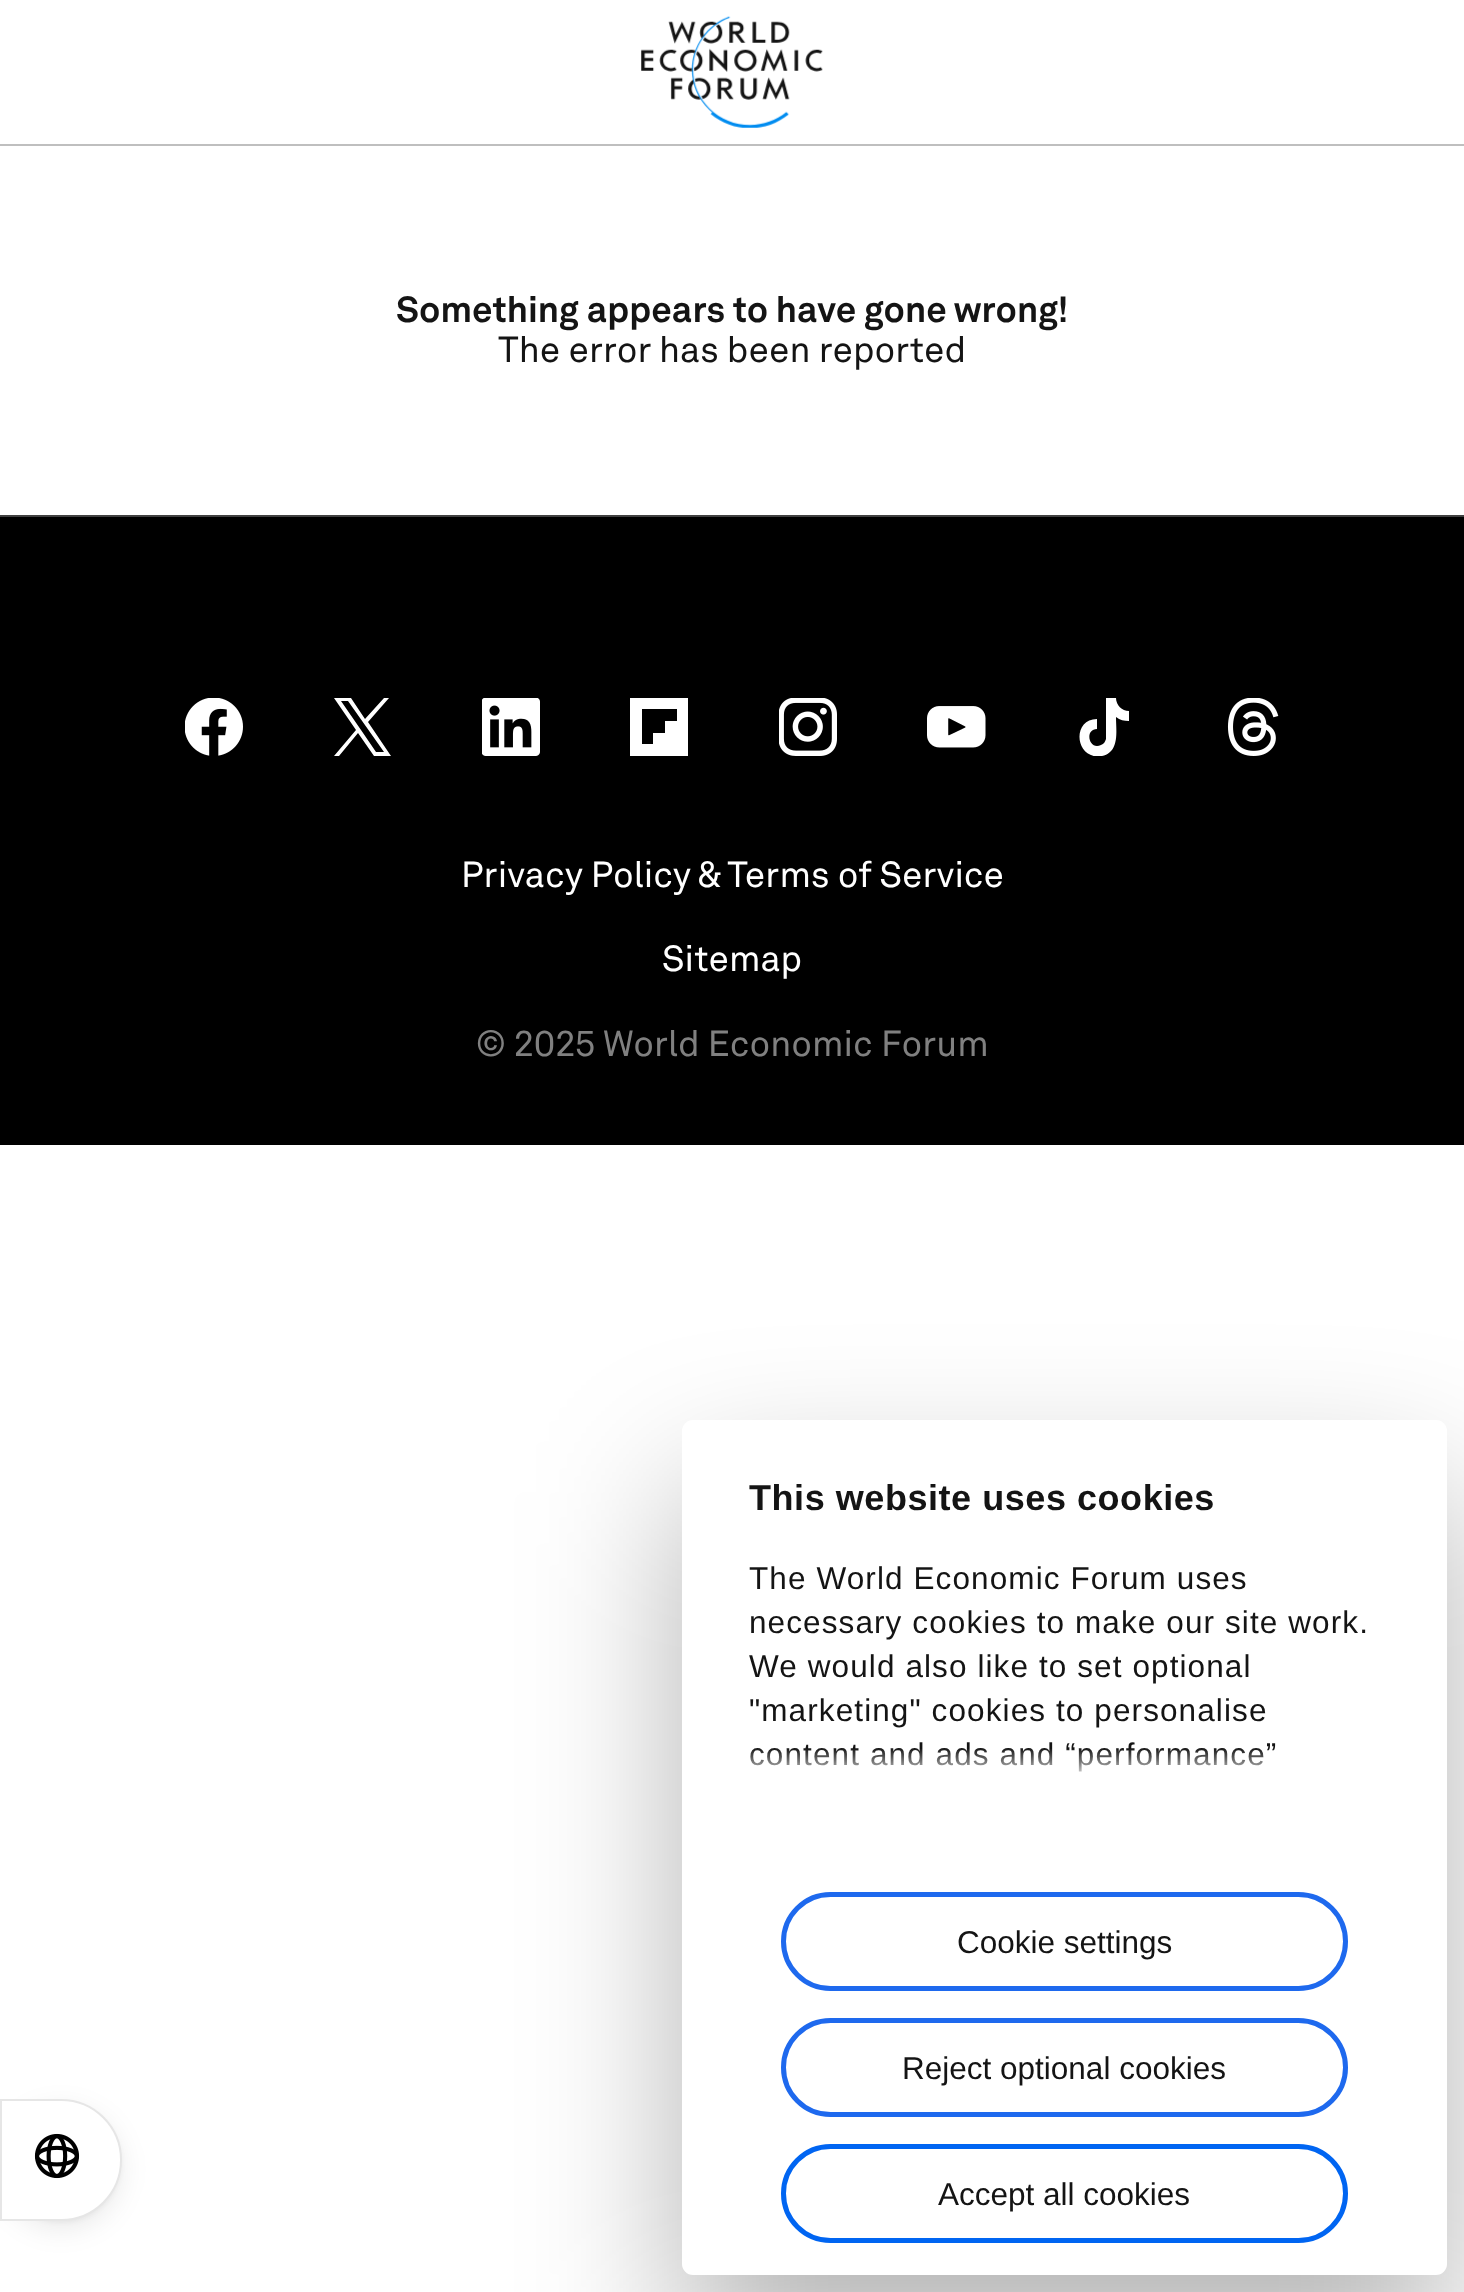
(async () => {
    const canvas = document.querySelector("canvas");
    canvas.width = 1464;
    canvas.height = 2292;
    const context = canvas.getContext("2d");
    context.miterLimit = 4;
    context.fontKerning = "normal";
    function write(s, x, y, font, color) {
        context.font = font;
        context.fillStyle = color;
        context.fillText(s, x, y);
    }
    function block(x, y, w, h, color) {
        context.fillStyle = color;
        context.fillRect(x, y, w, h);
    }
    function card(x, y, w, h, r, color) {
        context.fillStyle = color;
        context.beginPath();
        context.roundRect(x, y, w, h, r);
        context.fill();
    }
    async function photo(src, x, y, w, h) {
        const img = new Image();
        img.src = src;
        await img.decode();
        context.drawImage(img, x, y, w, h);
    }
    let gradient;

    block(0, 0, 1464, 2292, "rgb(255, 255, 255)");
    block(0, 144, 1464, 2, "rgb(191, 191, 191)");
    await photo("media/1.png", 641, 16, 182, 112);
    write("Something appears to have gone wrong!", 396, 322, "bold 36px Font", "rgb(20, 20, 20)");
    write("The error has been reported", 498, 362, "36px Font", "rgb(20, 20, 20)");
    block(0, 517, 1464, 628, "rgb(0, 0, 0)");
    block(0, 515, 1464, 2, "rgb(64, 64, 64)");
    await photo("media/2.png", 185, 698, 58, 58);
    context.fillStyle = "rgb(255, 255, 255)";
    context.beginPath();
    context.moveTo(368, 722);
    context.lineTo(389, 698);
    context.lineTo(384, 698);
    context.lineTo(365, 719);
    context.lineTo(351, 698);
    context.lineTo(334, 698);
    context.lineTo(356, 730);
    context.lineTo(334, 756);
    context.lineTo(339, 756);
    context.lineTo(358, 733);
    context.lineTo(374, 756);
    context.lineTo(391, 756);
    context.closePath();
    context.moveTo(361, 730);
    context.lineTo(341, 701);
    context.lineTo(348, 701);
    context.lineTo(384, 752);
    context.lineTo(376, 752);
    context.closePath();
    context.fill();
    await photo("media/3.png", 482, 698, 58, 58);
    context.beginPath();
    context.moveTo(688, 698);
    context.lineTo(630, 698);
    context.lineTo(630, 756);
    context.lineTo(688, 756);
    context.closePath();
    context.moveTo(665, 721);
    context.lineTo(677, 721);
    context.lineTo(677, 709);
    context.lineTo(642, 709);
    context.lineTo(642, 744);
    context.lineTo(653, 744);
    context.lineTo(653, 733);
    context.lineTo(665, 733);
    context.closePath();
    context.fill("evenodd");
    await photo("media/4.png", 779, 698, 58, 58);
    await photo("media/5.png", 927, 706, 59, 42);
    context.save();
    context.beginPath();
    context.rect(1076, 698, 58, 58);
    context.clip();
    context.beginPath();
    context.moveTo(1116, 698);
    context.lineTo(1106, 698);
    context.lineTo(1106, 739);
    context.bezierCurveTo(1105, 742, 1104, 744, 1101, 745);
    context.bezierCurveTo(1089, 751, 1084, 729, 1097, 729);
    context.lineTo(1097, 719);
    context.bezierCurveTo(1071, 719, 1075, 761, 1102, 756);
    context.bezierCurveTo(1120, 752, 1116, 731, 1116, 717);
    context.bezierCurveTo(1120, 720, 1124, 721, 1129, 721);
    context.lineTo(1129, 711);
    context.bezierCurveTo(1122, 711, 1116, 705, 1116, 698);
    context.closePath();
    context.fill();
    context.restore();
    await photo("media/6.png", 1227, 698, 52, 58);
    write("Privacy Policy & Terms of Service", 461, 887, "36px Font", "rgb(255, 255, 255)");
    write("Sitemap", 662, 971, "36px Font", "rgb(255, 255, 255)");
    write("© 2025", 476, 1056, "36px Font", "rgb(128, 128, 128)");
    write("World Economic Forum", 603, 1056, "36px Font", "rgb(128, 128, 128)");
    context.fillStyle = "rgba(0, 0, 0, 0.04)";
    context.filter = "blur(2px)";
    context.beginPath();
    context.roundRect(0, 2102, 122, 121, 60.5);
    context.fill();
    context.filter = "none";
    context.fillStyle = "rgba(0, 0, 0, 0.08)";
    context.filter = "blur(13.5px)";
    context.beginPath();
    context.roundRect(0, 2108, 122, 122, 61);
    context.fill();
    context.filter = "none";
    context.fillStyle = "rgb(255, 255, 255)";
    context.beginPath();
    context.roundRect(1, 2100, 120, 120, [0, 60, 60, 0]);
    context.fill();
    context.strokeStyle = "rgb(230, 230, 230)";
    context.lineWidth = 2;
    context.stroke();
    await photo("media/7.png", 34, 2133, 46, 46);
    context.fillStyle = "rgba(0, 0, 0, 0.3)";
    context.filter = "blur(76.5px)";
    context.beginPath();
    context.roundRect(682, 1492, 765, 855, 11);
    context.fill();
    context.filter = "none";
    card(682, 1420, 765, 855, 11, "rgb(255, 255, 255)");
    context.letterSpacing = "0.55px";
    write("This website uses cookies", 749, 1510, "bold 36px Liberation Sans", "rgb(20, 20, 20)");
    context.letterSpacing = "1.1px";
    write("The World Economic Forum uses", 749, 1589, "31.5px Liberation Sans", "rgb(20, 20, 20)");
    write("necessary cookies to make our site work.", 749, 1633, "31.5px Liberation Sans", "rgb(20, 20, 20)");
    write("We would also like to set optional", 749, 1677, "31.5px Liberation Sans", "rgb(20, 20, 20)");
    write("\"marketing\" cookies to personalise", 749, 1721, "31.5px Liberation Sans", "rgb(20, 20, 20)");
    write("content and ads and “performance”", 749, 1765, "31.5px Liberation Sans", "rgb(20, 20, 20)");
    gradient = context.createLinearGradient(1051, 1800, 1051, 1748);
    gradient.addColorStop(0, "rgb(255, 255, 255)");
    gradient.addColorStop(0.5, "rgba(255, 255, 255, 0.8)");
    gradient.addColorStop(1, "rgba(255, 255, 255, 0)");
    context.fillStyle = gradient;
    context.fillRect(750, 1749, 526, 23);
    context.beginPath();
    context.roundRect(783.5, 1894.5, 562, 94, 47);
    context.strokeStyle = "rgb(30, 105, 238)";
    context.lineWidth = 5;
    context.stroke();
    context.letterSpacing = "0px";
    write("Cookie settings", 957, 1953, "31.5px Liberation Sans", "rgb(20, 20, 20)");
    context.beginPath();
    context.roundRect(783.5, 2020.5, 562, 94, 47);
    context.stroke();
    write("Reject optional cookies", 902, 2079, "31.5px Liberation Sans", "rgb(20, 20, 20)");
    context.beginPath();
    context.roundRect(783.5, 2146.5, 562, 94, 47);
    context.strokeStyle = "rgb(0, 101, 242)";
    context.stroke();
    write("Accept all cookies", 938, 2205, "31.5px Liberation Sans", "rgb(20, 20, 20)");
})();
